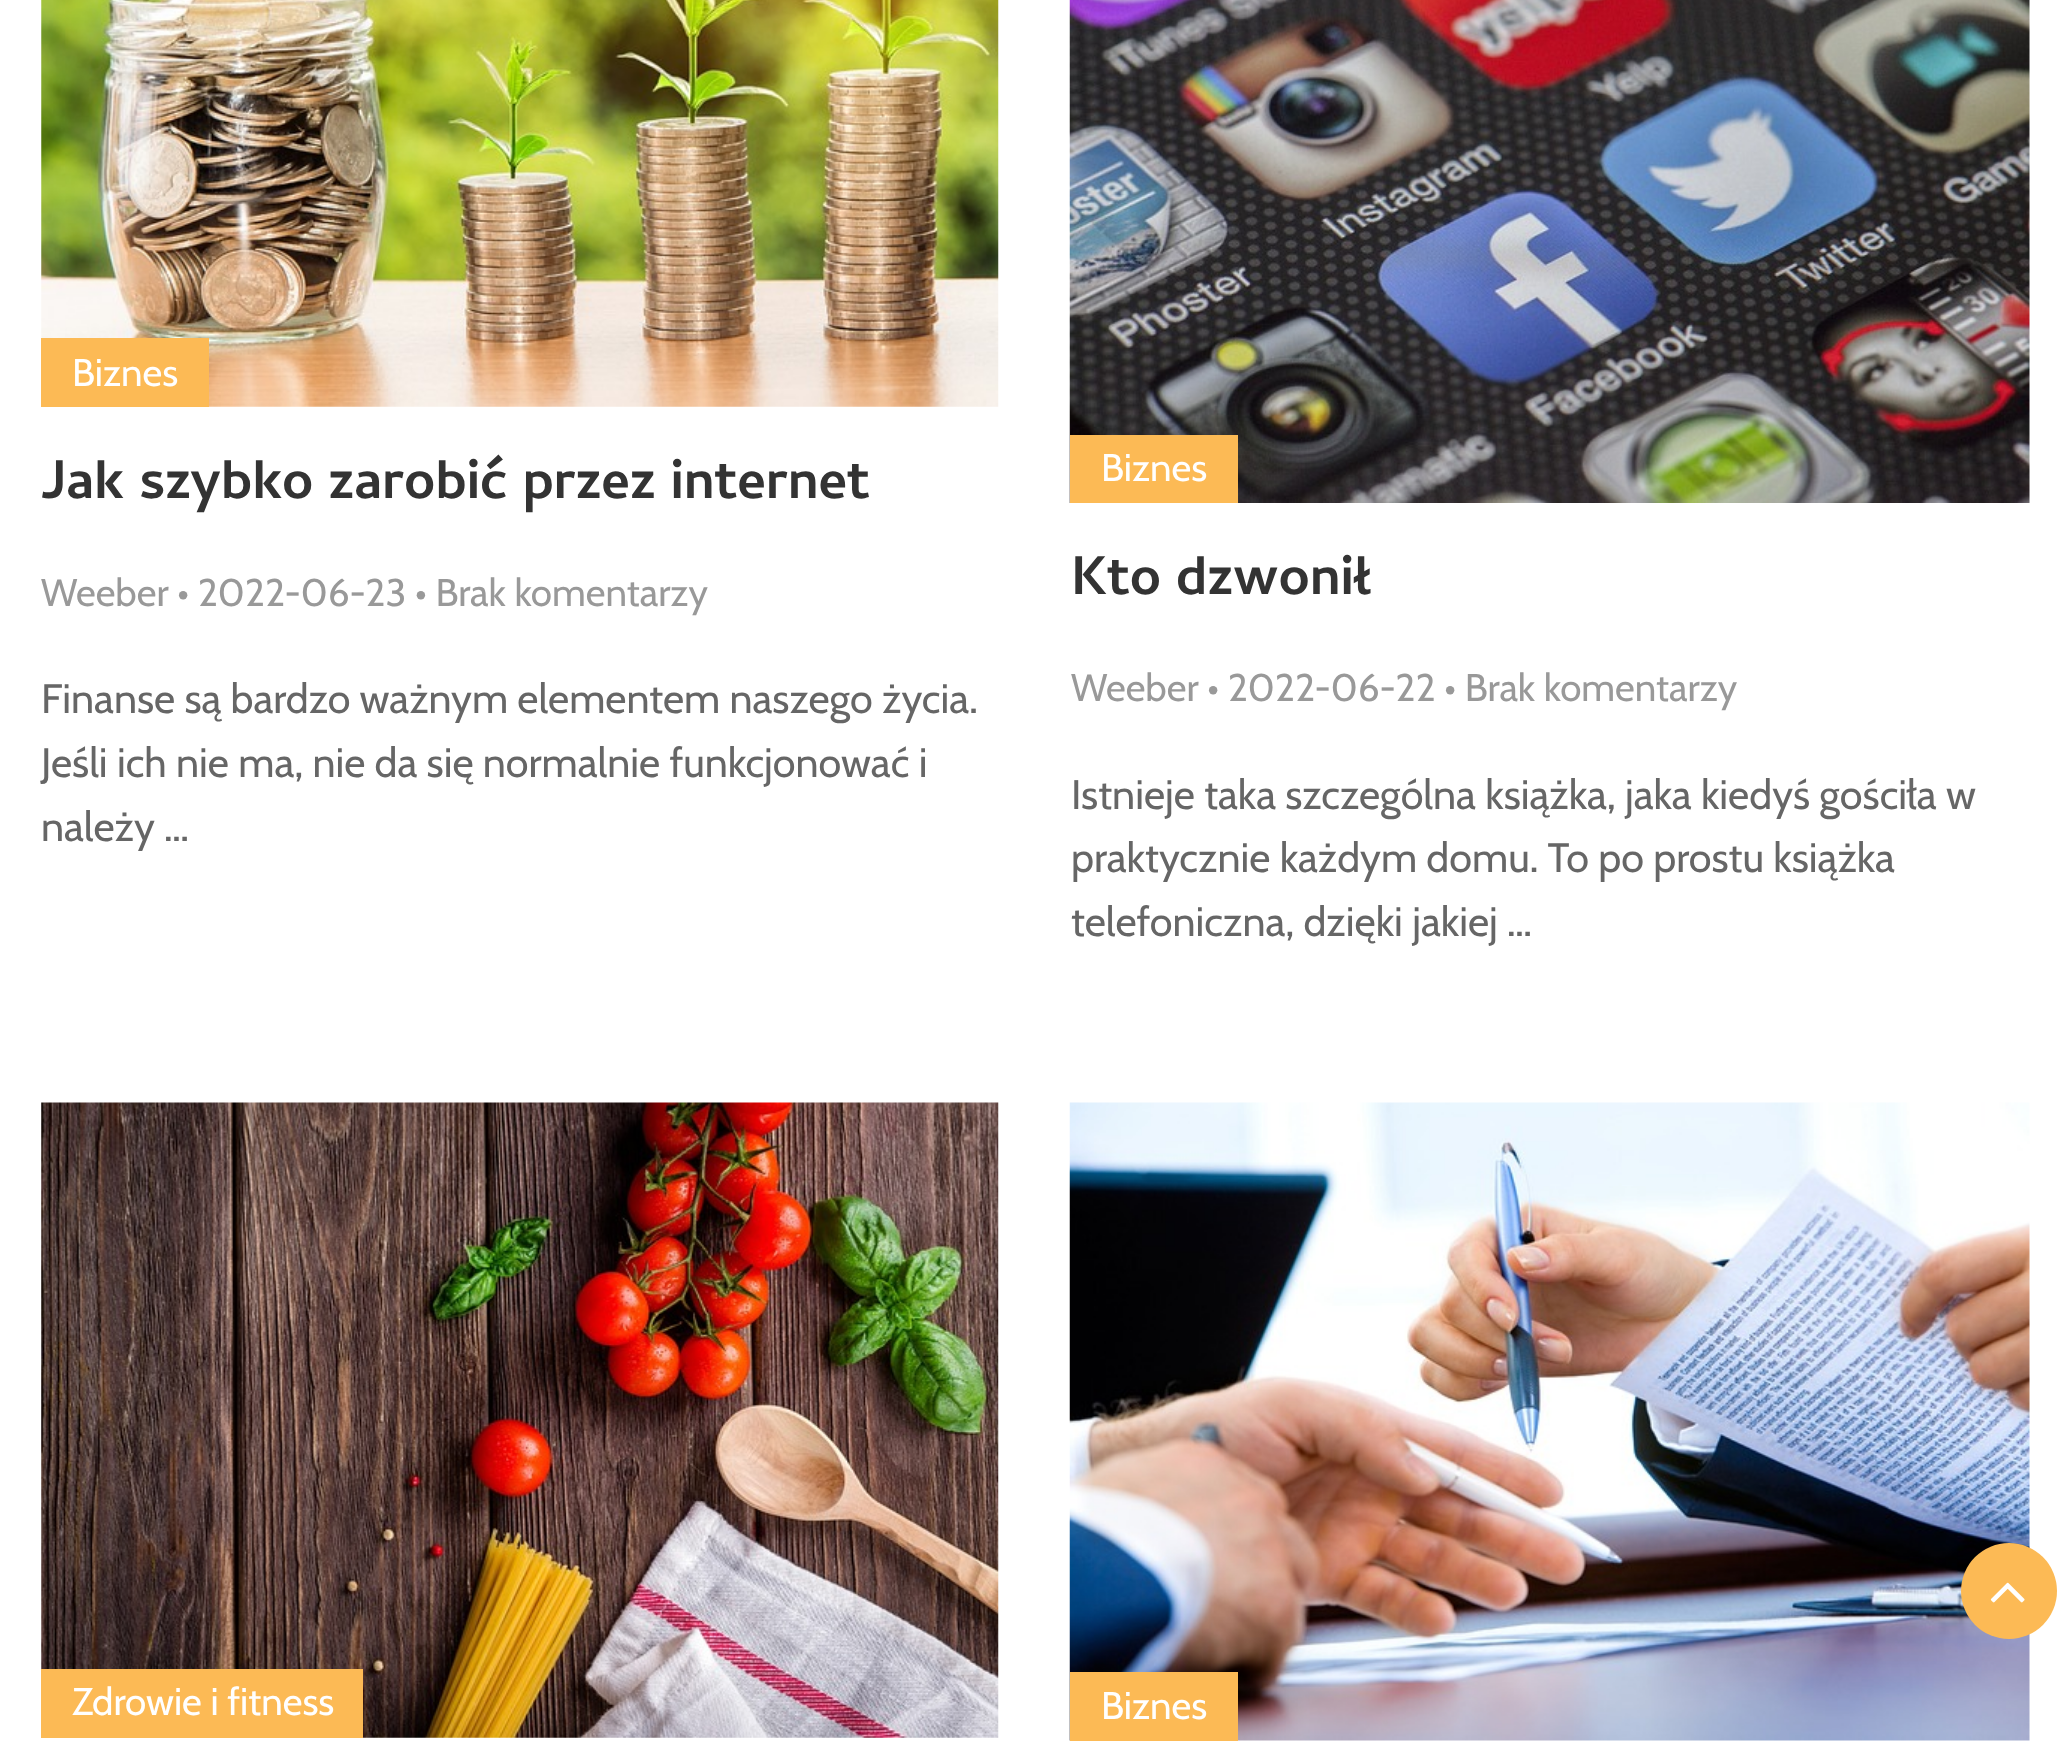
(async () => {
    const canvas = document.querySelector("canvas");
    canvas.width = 2069;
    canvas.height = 1748;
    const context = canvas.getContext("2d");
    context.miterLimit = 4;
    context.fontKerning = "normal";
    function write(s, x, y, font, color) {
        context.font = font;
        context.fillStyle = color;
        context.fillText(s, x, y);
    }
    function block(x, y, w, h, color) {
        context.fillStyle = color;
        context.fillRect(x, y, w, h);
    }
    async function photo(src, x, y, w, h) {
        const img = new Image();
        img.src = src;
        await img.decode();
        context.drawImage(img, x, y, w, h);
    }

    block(0, 0, 2069, 1748, "rgb(255, 255, 255)");
    await photo("media/1.png", 41, 0, 958, 407);
    block(41, 338, 168, 69, "rgb(252, 186, 85)");
    write("Biznes", 72, 386, "38.5px Cabin", "rgb(255, 255, 255)");
    write("Weeber • 2022-06-23 • Brak komentarzy", 41, 606, "38.5px Cabin", "rgb(153, 153, 153)");
    write("Jak szybko zarobić przez internet", 41, 498, "bold 55px Cambay", "rgb(51, 51, 51)");
    write("Finanse są bardzo ważnym elementem naszego życia.", 41, 713, "41.25px Cabin", "rgb(102, 102, 102)");
    write("Jeśli ich nie ma, nie da się normalnie funkcjonować i", 41, 777, "41.25px Cabin", "rgb(102, 102, 102)");
    write("należy …", 41, 841, "41.25px Cabin", "rgb(102, 102, 102)");
    await photo("media/2.png", 1069, 0, 961, 503);
    block(1070, 435, 168, 68, "rgb(252, 186, 85)");
    write("Biznes", 1101, 481, "38.5px Cabin", "rgb(255, 255, 255)");
    write("Weeber • 2022-06-22 • Brak komentarzy", 1071, 701, "38.5px Cabin", "rgb(153, 153, 153)");
    write("Kto dzwonił", 1071, 594, "bold 55px Cambay", "rgb(51, 51, 51)");
    write("Istnieje taka szczególna książka, jaka kiedyś gościła w", 1071, 809, "41.25px Cabin", "rgb(102, 102, 102)");
    write("praktycznie każdym domu. To po prostu książka", 1071, 872, "41.25px Cabin", "rgb(102, 102, 102)");
    write("telefoniczna, dzięki jakiej …", 1071, 936, "41.25px Cabin", "rgb(102, 102, 102)");
    await photo("media/3.png", 41, 1102, 958, 636);
    block(41, 1669, 322, 69, "rgb(252, 186, 85)");
    write("Zdrowie i fitness", 72, 1715, "38.5px Cabin", "rgb(255, 255, 255)");
    await photo("media/4.png", 1069, 1102, 961, 639);
    block(1070, 1672, 168, 69, "rgb(252, 186, 85)");
    write("Biznes", 1101, 1719, "38.5px Cabin", "rgb(255, 255, 255)");
    context.fillStyle = "rgb(252, 186, 85)";
    context.beginPath();
    context.arc(2009, 1591, 48, 0, Math.PI * 2);
    context.fill();
    await photo("media/5.png", 1990, 1582, 35, 21);
})();
